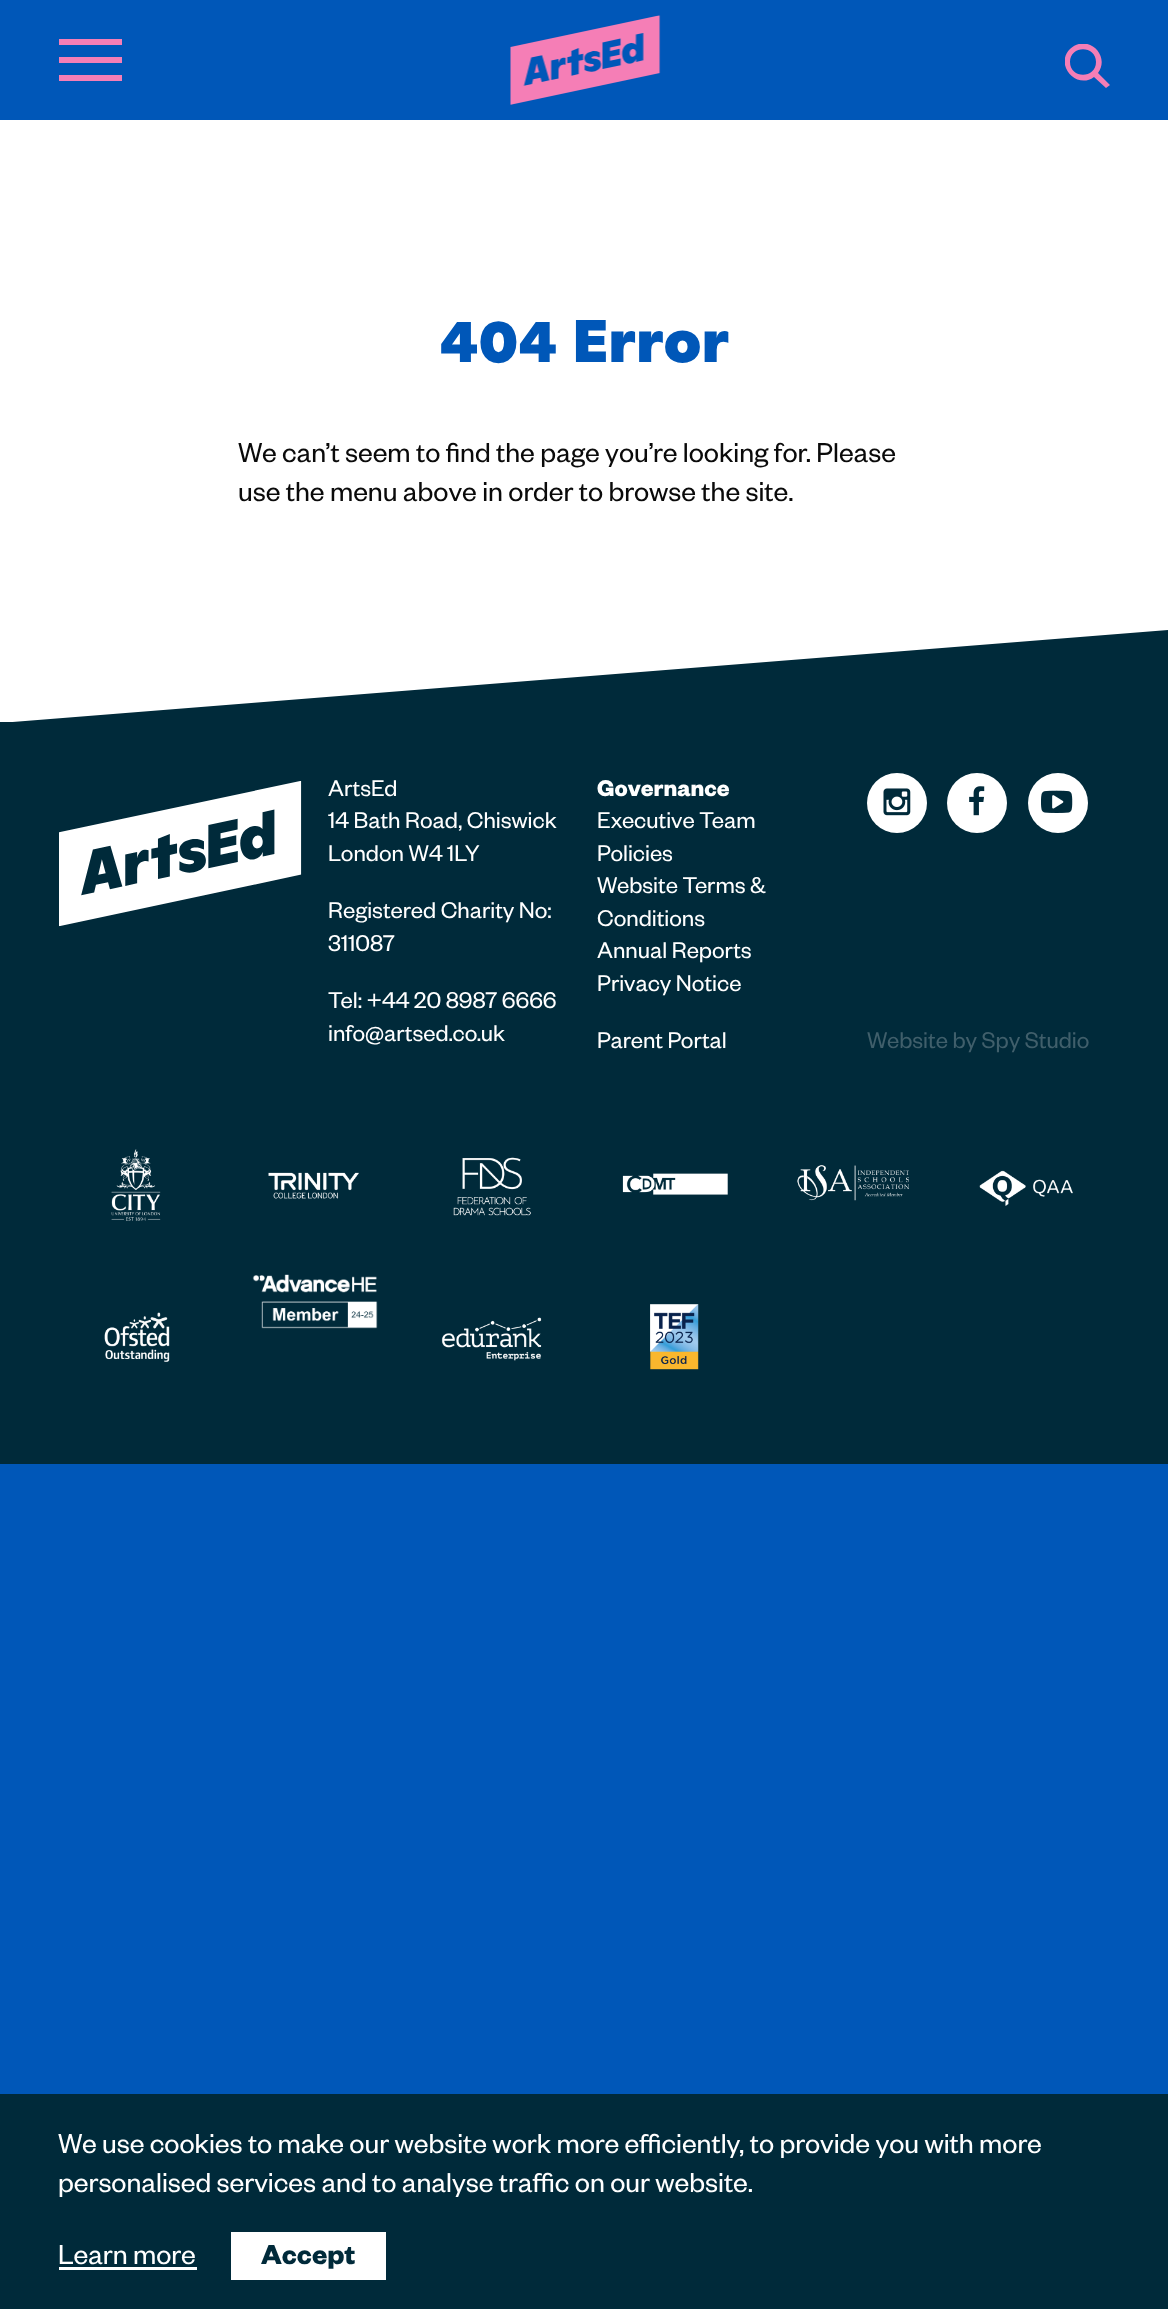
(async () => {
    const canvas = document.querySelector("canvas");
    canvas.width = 1168;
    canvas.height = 2309;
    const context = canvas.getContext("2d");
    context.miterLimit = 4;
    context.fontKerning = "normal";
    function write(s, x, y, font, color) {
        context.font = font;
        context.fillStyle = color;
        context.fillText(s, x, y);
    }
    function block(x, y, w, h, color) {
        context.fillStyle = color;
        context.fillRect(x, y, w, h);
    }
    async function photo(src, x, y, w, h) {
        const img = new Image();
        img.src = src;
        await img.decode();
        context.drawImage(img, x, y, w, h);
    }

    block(0, 0, 1168, 2309, "rgb(0, 87, 184)");
    block(59, 39, 63, 6, "rgb(245, 126, 182)");
    block(59, 57, 63, 6, "rgb(245, 126, 182)");
    block(59, 75, 63, 6, "rgb(245, 126, 182)");
    await photo("media/1.png", 510, 15, 151, 90);
    context.save();
    context.beginPath();
    context.rect(1065, 44, 45, 45);
    context.clip();
    context.beginPath();
    context.moveTo(1070, 62);
    context.bezierCurveTo(1070, 45, 1096, 45, 1096, 62);
    context.bezierCurveTo(1096, 79, 1070, 79, 1070, 62);
    context.closePath();
    context.moveTo(1110, 85);
    context.lineTo(1098, 73);
    context.bezierCurveTo(1111, 55, 1087, 33, 1070, 49);
    context.bezierCurveTo(1054, 65, 1077, 90, 1094, 77);
    context.lineTo(1106, 88);
    context.closePath();
    context.fill("evenodd");
    context.restore();
    block(0, 120, 1168, 602, "rgb(255, 255, 255)");
    write("404 Error", 440, 362, "800 60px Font", "rgb(0, 87, 184)");
    write("We can’t seem to find the page you’re looking for. Please", 238, 462, "30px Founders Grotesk", "rgb(10, 10, 10)");
    write("use the menu above in order to browse the site.", 238, 501, "30px Founders Grotesk", "rgb(10, 10, 10)");
    context.fillStyle = "rgb(0, 42, 58)";
    context.beginPath();
    context.moveTo(1168, 630);
    context.lineTo(1168, 723);
    context.lineTo(0, 723);
    context.closePath();
    context.fill();
    block(0, 722, 1168, 742, "rgb(0, 42, 58)");
    await photo("media/2.png", 59, 781, 243, 146);
    write("ArtsEd", 328, 796, "25px Founders Grotesk", "rgb(255, 255, 255)");
    write("14 Bath Road, Chiswick", 328, 828, "25px Founders Grotesk", "rgb(255, 255, 255)");
    write("London W4 1LY", 328, 861, "25px Founders Grotesk", "rgb(255, 255, 255)");
    write("Registered Charity No:", 328, 918, "25px Founders Grotesk", "rgb(255, 255, 255)");
    write("311087", 328, 951, "25px Founders Grotesk", "rgb(255, 255, 255)");
    write("Tel: +44 20 8987 6666", 328, 1008, "25px Founders Grotesk", "rgb(255, 255, 255)");
    write("info@artsed.co.uk", 328, 1041, "25px Founders Grotesk", "rgb(255, 255, 255)");
    write("Governance", 597, 796, "bold 25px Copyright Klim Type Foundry", "rgb(255, 255, 255)");
    write("Executive Team", 597, 828, "25px Founders Grotesk", "rgb(255, 255, 255)");
    write("Policies", 597, 861, "25px Founders Grotesk", "rgb(255, 255, 255)");
    write("Website Terms &", 597, 893, "25px Founders Grotesk", "rgb(255, 255, 255)");
    write("Conditions", 597, 926, "25px Founders Grotesk", "rgb(255, 255, 255)");
    write("Annual Reports", 597, 958, "25px Founders Grotesk", "rgb(255, 255, 255)");
    write("Privacy Notice", 597, 991, "25px Founders Grotesk", "rgb(255, 255, 255)");
    write("Parent Portal", 597, 1048, "25px Founders Grotesk", "rgb(255, 255, 255)");
    context.beginPath();
    context.arc(897, 803, 30, 0, Math.PI * 2);
    context.fill();
    await photo("media/3.png", 883, 788, 28, 28);
    context.beginPath();
    context.arc(977, 803, 30, 0, Math.PI * 2);
    context.fill();
    await photo("media/4.png", 969, 786, 16, 30);
    context.beginPath();
    context.arc(1058, 803, 30, 0, Math.PI * 2);
    context.fill();
    await photo("media/5.png", 1041, 790, 32, 23);
    write("Website by Spy Studio", 867, 1048, "25px Founders Grotesk", "rgb(64, 95, 107)");
    await photo("media/6.png", 111, 1149, 50, 72);
    await photo("media/7.png", 268, 1172, 91, 27);
    await photo("media/8.png", 453, 1157, 78, 59);
    await photo("media/9.png", 622, 1173, 106, 22);
    await photo("media/10.png", 797, 1165, 112, 36);
    await photo("media/11.png", 979, 1170, 94, 36);
    await photo("media/12.png", 104, 1312, 66, 50);
    await photo("media/13.png", 252, 1274, 126, 55);
    await photo("media/14.png", 441, 1317, 101, 44);
    await photo("media/15.png", 650, 1304, 49, 66);
    block(0, 2094, 1168, 215, "rgb(0, 42, 58)");
    write("We use cookies to make our website work more efficiently, to provide you with more", 58, 2153, "30px Founders Grotesk", "rgb(255, 255, 255)");
    write("personalised services and to analyse traffic on our website.", 58, 2192, "30px Founders Grotesk", "rgb(255, 255, 255)");
    write("Learn more", 58, 2264, "30px Founders Grotesk", "rgb(255, 255, 255)");
    block(59, 2267, 138, 3, "rgb(255, 255, 255)");
    block(231, 2232, 155, 48, "rgb(255, 255, 255)");
    write("Accept", 261, 2264, "bold 30px Copyright Klim Type Foundry", "rgb(0, 42, 58)");
})();
